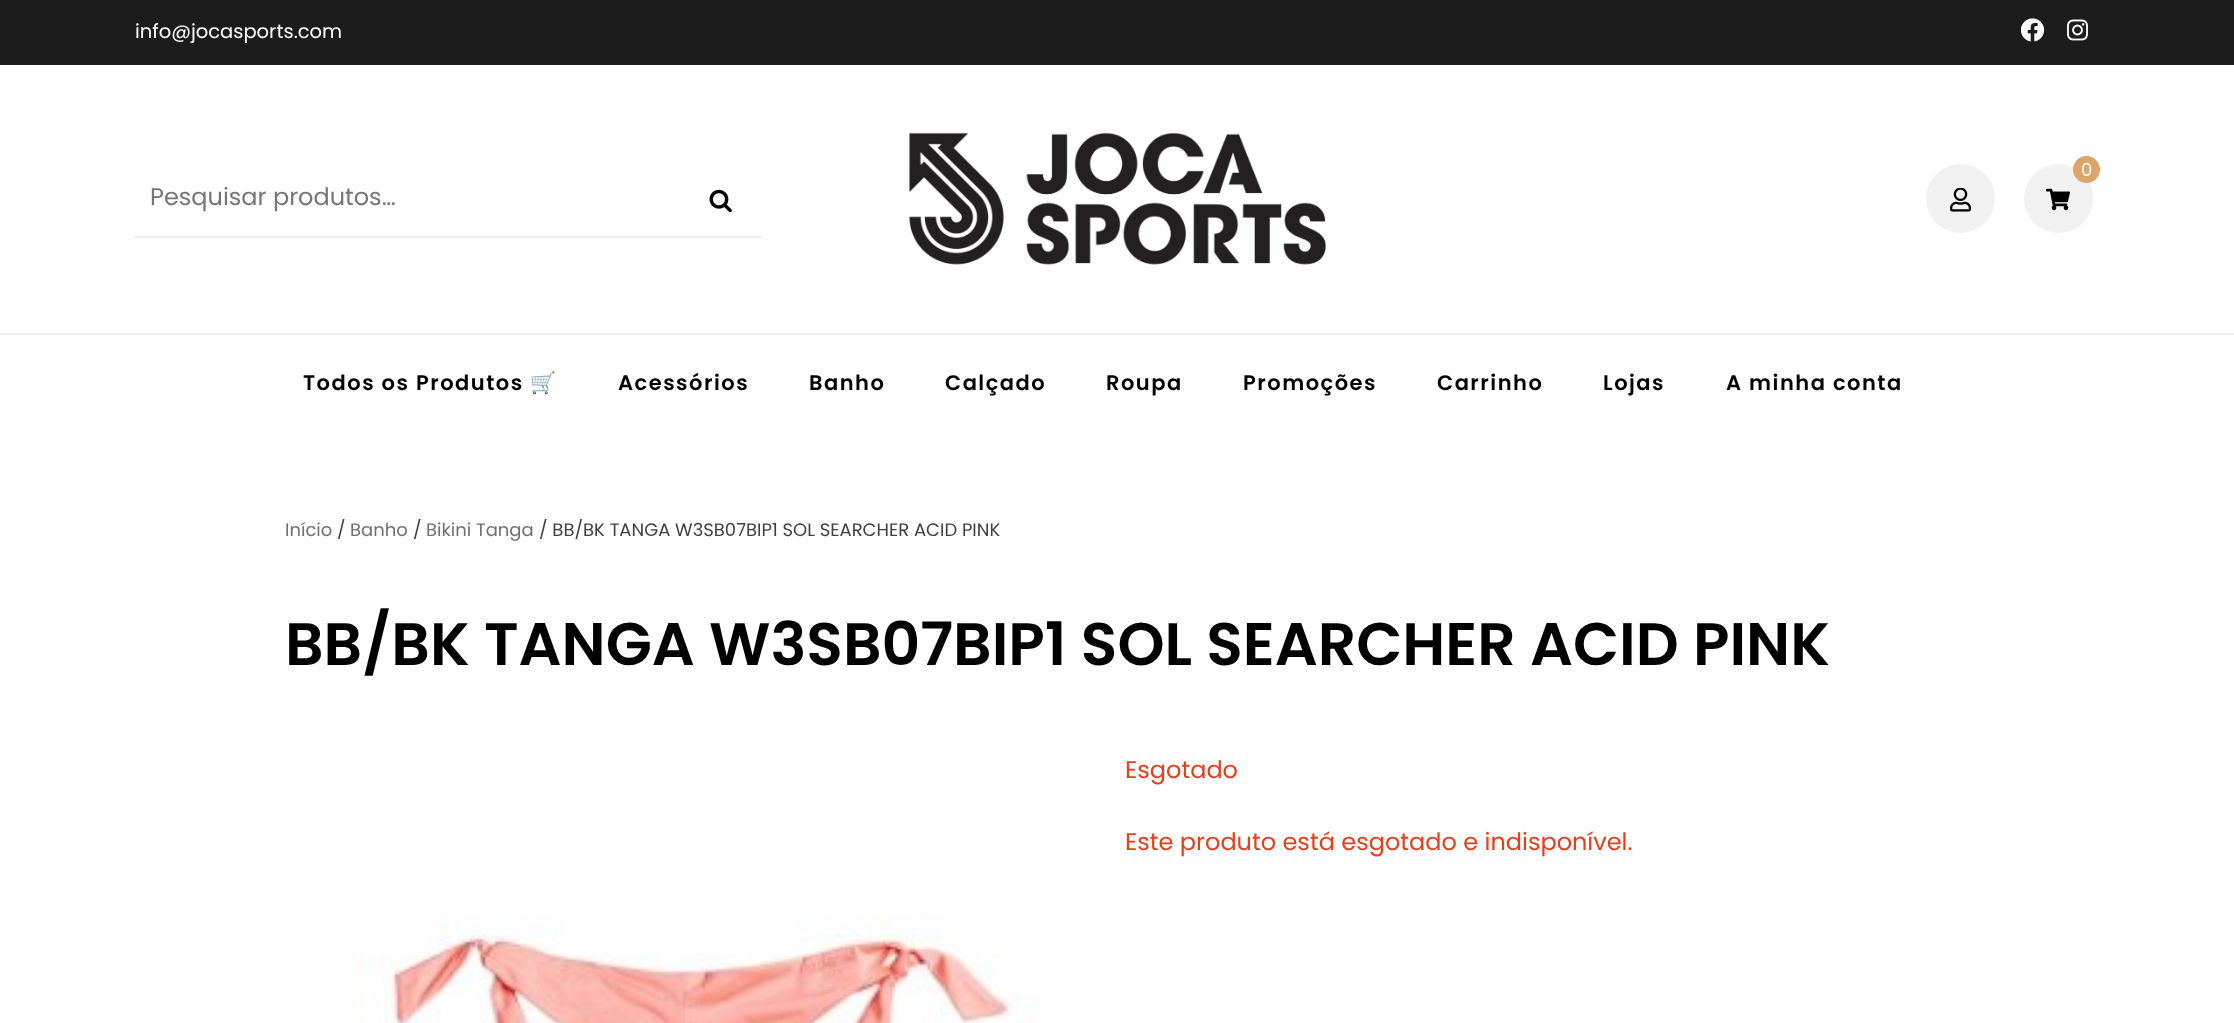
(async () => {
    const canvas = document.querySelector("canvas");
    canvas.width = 2234;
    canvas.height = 1023;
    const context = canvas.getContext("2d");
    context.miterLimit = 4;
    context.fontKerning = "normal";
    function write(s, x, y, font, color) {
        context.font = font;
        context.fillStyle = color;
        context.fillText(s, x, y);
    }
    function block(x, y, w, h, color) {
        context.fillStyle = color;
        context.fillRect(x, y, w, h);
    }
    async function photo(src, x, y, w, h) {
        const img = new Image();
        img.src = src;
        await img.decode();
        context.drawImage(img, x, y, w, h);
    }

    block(0, 0, 2234, 1023, "rgb(255, 255, 255)");
    block(0, 0, 2234, 65, "rgb(28, 28, 28)");
    write("info@jocasports.com", 135, 38, "19.5px Poppins", "rgb(255, 255, 255)");
    await photo("media/1.png", 2021, 18, 24, 24);
    await photo("media/2.png", 2067, 19, 21, 22);
    await photo("media/3.png", 909, 132, 417, 133);
    context.fillStyle = "rgb(241, 241, 241)";
    context.beginPath();
    context.arc(1960.5, 198.5, 34.5, 0, Math.PI * 2);
    context.fill();
    await photo("media/4.png", 1950, 188, 21, 24);
    context.beginPath();
    context.arc(2058.5, 198.5, 34.5, 0, Math.PI * 2);
    context.fill();
    context.fillStyle = "rgb(220, 165, 109)";
    context.beginPath();
    context.arc(2086.5, 169.5, 13.5, 0, Math.PI * 2);
    context.fill();
    write("0", 2081, 176, "18px Poppins", "rgb(255, 255, 255)");
    await photo("media/5.png", 2046, 188, 24, 23);
    block(135, 236, 626, 2, "rgb(235, 235, 235)");
    write("Pesquisar produtos…", 150, 205, "24px Poppins", "rgb(117, 117, 117)");
    await photo("media/6.png", 709, 189, 23, 24);
    block(0, 333, 2234, 2, "rgb(235, 235, 235)");
    context.letterSpacing = "1.5px";
    write("Todos os Produtos", 303, 390, "600 21px Poppins", "rgb(0, 0, 0)");
    write("🛒", 530, 390, "bold 21px Noto Color Emoji", "rgb(0, 0, 0)");
    write("Acessórios", 618, 390, "600 21px Poppins", "rgb(0, 0, 0)");
    write("Banho", 809, 390, "600 21px Poppins", "rgb(0, 0, 0)");
    write("Calçado", 945, 390, "600 21px Poppins", "rgb(0, 0, 0)");
    write("Roupa", 1106, 390, "600 21px Poppins", "rgb(0, 0, 0)");
    write("Promoções", 1243, 390, "600 21px Poppins", "rgb(0, 0, 0)");
    write("Carrinho", 1437, 390, "600 21px Poppins", "rgb(0, 0, 0)");
    write("Lojas", 1603, 390, "600 21px Poppins", "rgb(0, 0, 0)");
    write("A minha conta", 1726, 390, "600 21px Poppins", "rgb(0, 0, 0)");
    context.letterSpacing = "0px";
    write("Início", 285, 536, "18px Poppins", "rgb(113, 111, 111)");
    write("/", 337, 536, "18px Poppins", "rgb(64, 64, 64)");
    write("Banho", 350, 536, "18px Poppins", "rgb(113, 111, 111)");
    write("/", 413, 536, "18px Poppins", "rgb(64, 64, 64)");
    write("Bikini Tanga", 426, 536, "18px Poppins", "rgb(113, 111, 111)");
    write("/ BB/BK TANGA W3SB07BIP1 SOL SEARCHER ACID PINK", 539, 536, "18px Poppins", "rgb(64, 64, 64)");
    write("BB/BK TANGA W3SB07BIP1 SOL SEARCHER ACID PINK", 285, 665, "600 60px Poppins", "rgb(0, 0, 0)");
    write("Esgotado", 1125, 778, "24px Poppins", "rgb(226, 64, 28)");
    write("Este produto está esgotado e indisponível.", 1125, 850, "24px Poppins", "rgb(226, 64, 28)");
    await photo("media/7.png", 360, 915, 680, 108);
})();
